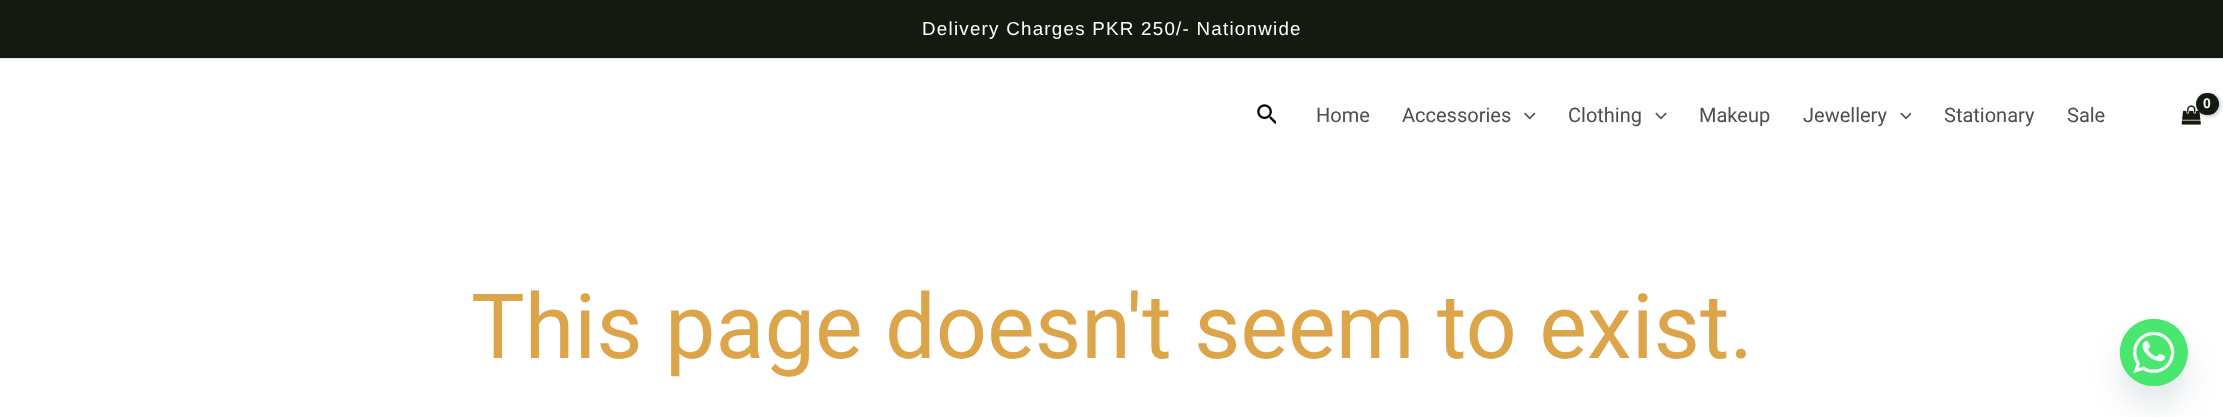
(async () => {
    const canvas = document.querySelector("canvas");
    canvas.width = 2223;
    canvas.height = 417;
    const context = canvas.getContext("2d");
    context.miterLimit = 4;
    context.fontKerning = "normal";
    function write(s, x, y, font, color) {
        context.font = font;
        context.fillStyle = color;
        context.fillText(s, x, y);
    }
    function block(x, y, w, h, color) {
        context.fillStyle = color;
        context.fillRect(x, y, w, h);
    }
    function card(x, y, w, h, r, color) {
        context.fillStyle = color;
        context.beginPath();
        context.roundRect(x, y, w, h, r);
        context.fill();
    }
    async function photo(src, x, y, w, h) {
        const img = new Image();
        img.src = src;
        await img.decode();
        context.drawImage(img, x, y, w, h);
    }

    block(0, 0, 2223, 417, "rgb(255, 255, 255)");
    block(0, 0, 2223, 58, "rgb(20, 26, 15)");
    block(0, 58, 2223, 1, "rgb(234, 234, 234)");
    context.letterSpacing = "1.25px";
    write("Delivery Charges PKR 250/- Nationwide", 922, 35, "18.75px Liberation Sans", "rgb(255, 255, 255)");
    await photo("media/1.png", 1257, 104, 19, 20);
    context.letterSpacing = "0px";
    write("Home", 1316, 122, "20px Roboto", "rgb(77, 79, 72)");
    write("Accessories", 1402, 122, "20px Roboto", "rgb(77, 79, 72)");
    await photo("media/2.png", 1524, 112, 12, 8);
    write("Clothing", 1568, 122, "20px Roboto", "rgb(77, 79, 72)");
    await photo("media/3.png", 1655, 112, 12, 8);
    write("Makeup", 1699, 122, "20px Roboto", "rgb(77, 79, 72)");
    write("Jewellery", 1803, 122, "20px Roboto", "rgb(77, 79, 72)");
    await photo("media/4.png", 1900, 112, 11, 8);
    write("Stationary", 1944, 122, "20px Roboto", "rgb(77, 79, 72)");
    write("Sale", 2067, 122, "20px Roboto", "rgb(77, 79, 72)");
    await photo("media/5.png", 2181, 105, 20, 20);
    context.fillStyle = "rgba(0, 0, 0, 0.3)";
    context.filter = "blur(2px)";
    context.beginPath();
    context.roundRect(2198, 94, 22, 22, 11);
    context.fill();
    context.filter = "none";
    card(2196, 93, 23, 22, 11, "rgb(20, 26, 15)");
    context.letterSpacing = "-1px";
    write("0", 2203, 108, "bold 14px Liberation Sans", "rgb(255, 255, 255)");
    context.letterSpacing = "0px";
    write("This page doesn't seem to exist.", 471, 358, "90px Roboto", "rgb(220, 165, 74)");
    context.fillStyle = "rgba(73, 104, 126, 0.16)";
    context.filter = "blur(15px)";
    context.beginPath();
    context.roundRect(2120, 339, 68, 67, 33.5);
    context.fill();
    context.filter = "none";
    card(2120, 319, 68, 67, 33.5, "rgb(73, 230, 112)");
    await photo("media/6.png", 2120, 319, 55, 67);
})();
